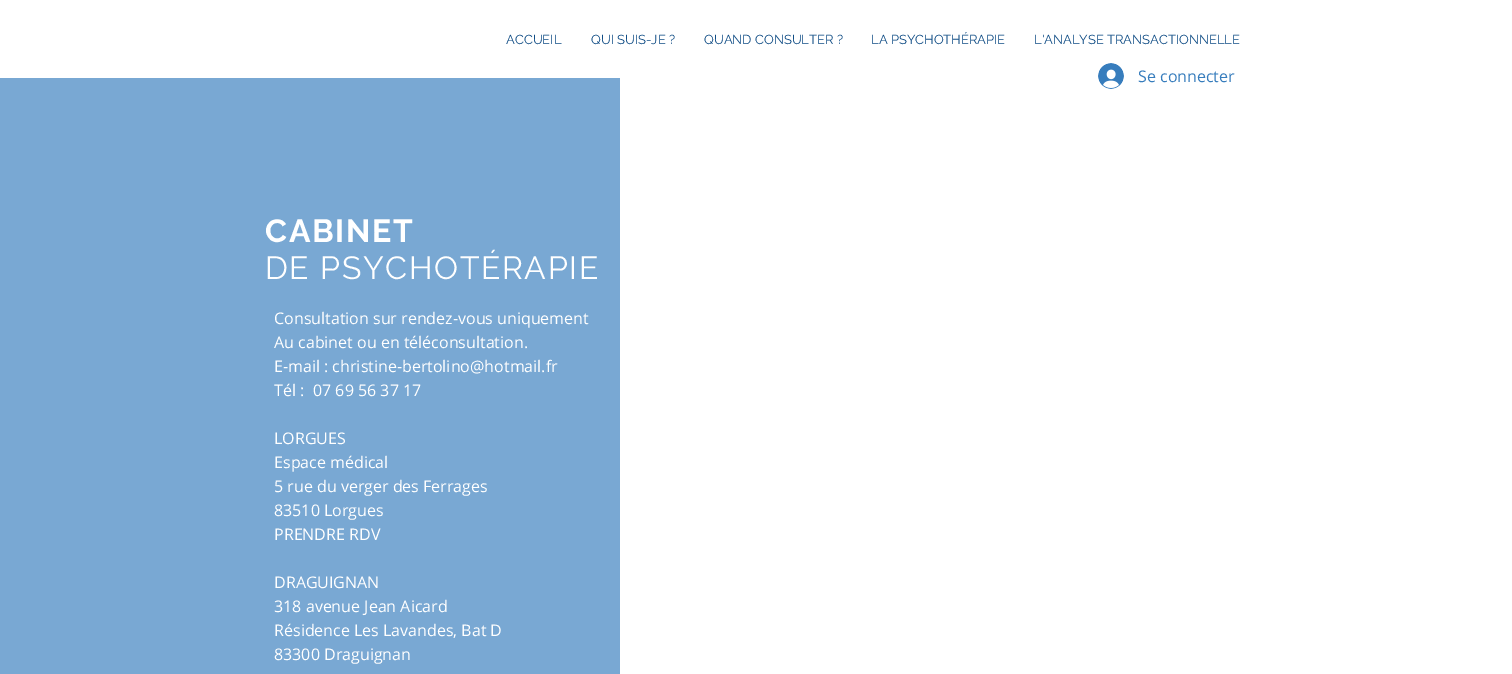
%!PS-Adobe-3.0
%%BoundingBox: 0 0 1512 674
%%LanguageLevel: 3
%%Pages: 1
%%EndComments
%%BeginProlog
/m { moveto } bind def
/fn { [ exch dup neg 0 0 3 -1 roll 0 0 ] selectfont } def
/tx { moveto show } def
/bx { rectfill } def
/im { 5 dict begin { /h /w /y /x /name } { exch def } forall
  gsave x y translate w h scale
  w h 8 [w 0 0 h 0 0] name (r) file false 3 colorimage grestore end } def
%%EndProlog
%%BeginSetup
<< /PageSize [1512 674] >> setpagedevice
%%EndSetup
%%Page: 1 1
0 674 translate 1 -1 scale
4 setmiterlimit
1 setgray
0 0 1512 674 bx
/Raleway-Regular 13 fn
0.059 0.298 0.522 setrgbcolor
(ACCUEIL) 506 44 tx
(QUI SUIS-JE ?) 591 44 tx
(QUAND CONSULTER ?) 704 44 tx
(LA PSYCHOTHÉRAPIE) 871 44 tx
(L'ANALYSE TRANSACTIONNELLE) 1034 44 tx
(image0.raw) 1098 63 26 26 im
/OpenSans-Regular 16 fn
0.216 0.49 0.741 setrgbcolor
(Se connecter) 1138 82 tx
0.475 0.659 0.827 setrgbcolor
0 78 620 596 bx
/Raleway-Bold 32 fn
1 setgray
265 242 m 1.6 0 (CABINET) ashow
/Raleway-Regular 32 fn
265 279 m 1.6 0 (DE PSYCHOTÉRAPIE) ashow
/OpenSans-Regular 16 fn
(Consultation sur rendez-vous uniquement) 274 324 tx
(Au cabinet ou en téléconsultation.) 274 348 tx
(E-mail : christine-bertolino@hotmail.fr) 274 372 tx
(Tél :) 274 396 tx
(07 69 56 37 17) 313 396 tx
(LORGUES) 274 444 tx
(Espace médical) 274 468 tx
(5 rue du verger des Ferrages) 274 492 tx
(83510 Lorgues) 274 516 tx
(PRENDRE RDV) 274 540 tx
(DRAGUIGNAN) 274 588 tx
(318 avenue Jean Aicard) 274 612 tx
(Résidence Les Lavandes, Bat D) 274 636 tx
(83300 Draguignan) 274 660 tx
showpage
%%EOF
